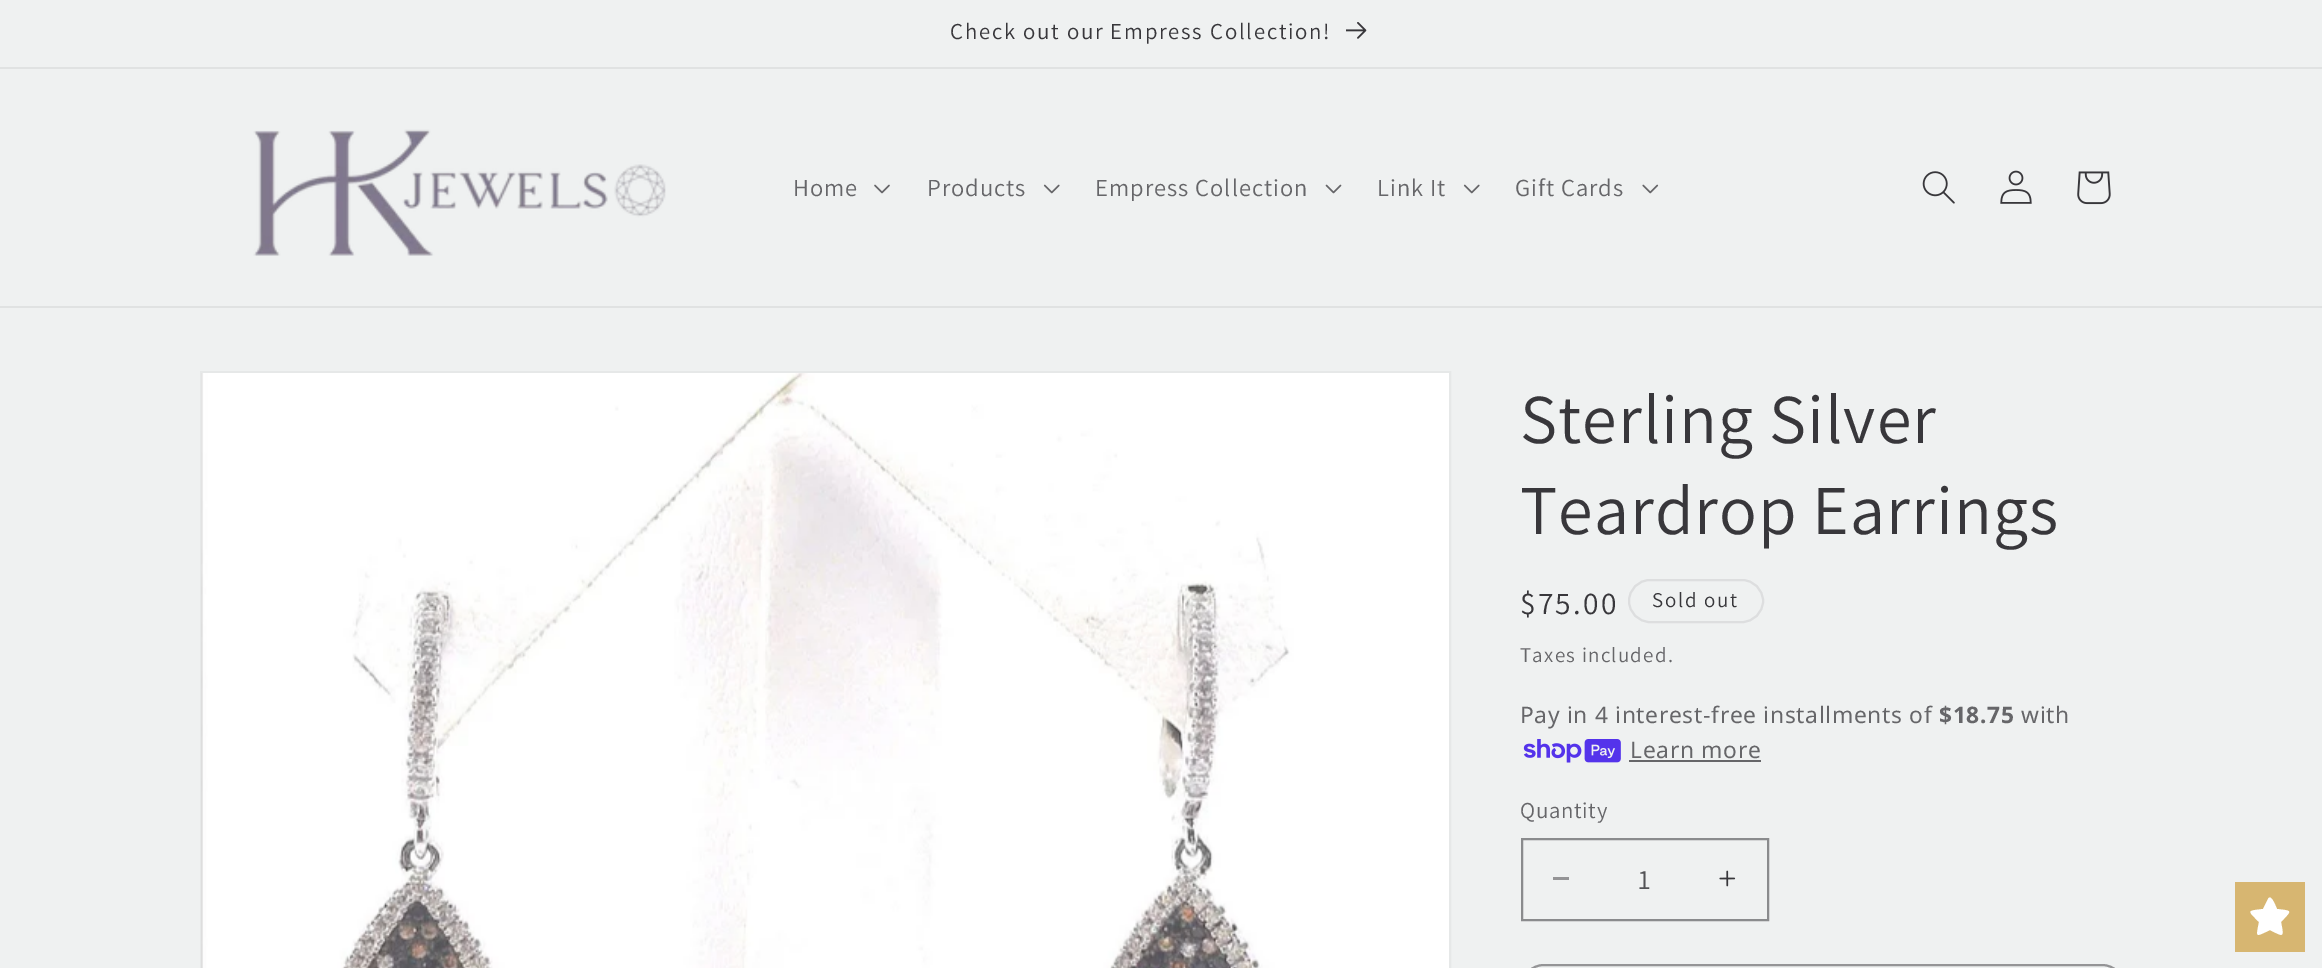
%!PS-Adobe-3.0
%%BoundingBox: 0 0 2322 968
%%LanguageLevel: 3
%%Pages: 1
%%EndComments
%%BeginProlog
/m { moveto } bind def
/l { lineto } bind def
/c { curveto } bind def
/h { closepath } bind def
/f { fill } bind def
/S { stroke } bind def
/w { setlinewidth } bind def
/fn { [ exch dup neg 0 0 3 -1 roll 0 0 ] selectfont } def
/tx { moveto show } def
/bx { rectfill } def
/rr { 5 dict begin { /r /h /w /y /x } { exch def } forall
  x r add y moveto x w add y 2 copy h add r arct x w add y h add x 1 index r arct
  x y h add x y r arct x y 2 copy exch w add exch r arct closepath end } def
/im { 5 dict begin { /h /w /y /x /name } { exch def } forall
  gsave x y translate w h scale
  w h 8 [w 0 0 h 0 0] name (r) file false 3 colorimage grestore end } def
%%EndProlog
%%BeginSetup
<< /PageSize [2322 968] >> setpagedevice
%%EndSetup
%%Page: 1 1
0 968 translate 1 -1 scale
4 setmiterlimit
0.937 0.945 0.945 setrgbcolor
0 0 2322 968 bx
0.878 0.886 0.886 setrgbcolor
0 67 2322 2 bx
/Assistant-Regular 22.75 fn
0.22 0.216 0.231 setrgbcolor
950 39 m 1.75 0 (Check out our Empress Collection!) ashow
(image0.raw) 1346 22 21 17 im
0.878 0.886 0.886 setrgbcolor
0 306 2322 2 bx
(image1.raw) 253 129 413 127 im
/Assistant-Regular 24.5 fn
0.4 0.4 0.412 setrgbcolor
793 196 m 1 0 (Home) ashow
(image2.raw) 874 184 16 10 im
927 196 m 1 0 (Products) ashow
(image3.raw) 1043 184 17 10 im
1095 196 m 1 0 (Empress Collection) ashow
(image4.raw) 1325 184 17 10 im
1377 196 m 1 0 (Link It) ashow
(image3.raw) 1463 184 17 10 im
1515 196 m 1 0 (Gift Cards) ashow
(image5.raw) 1642 184 17 10 im
(image6.raw) 1922 171 33 33 im
(image7.raw) 2000 170 32 34 im
(image8.raw) 2077 171 34 34 im
0.902 0.91 0.91 setrgbcolor
2 w
201 372 1249 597 rectstroke
(image9.raw) 201 373 1248 595 im
/Assistant-Regular 70 fn
0.22 0.216 0.231 setrgbcolor
1520 443 m 1 0 (Sterling Silver) ashow
1520 534 m 1 0 (Teardrop Earrings) ashow
/Assistant-Regular 31.5 fn
1520 614 m 2.25 0 ($75.00) ashow
0.867 0.871 0.875 setrgbcolor
1629 580 134 42 21 rr S
/Assistant-Regular 21 fn
0.22 0.216 0.231 setrgbcolor
1652 607 m 1.75 0 (Sold out) ashow
0.4 0.4 0.412 setrgbcolor
1520 662 m 1.25 0 (Taxes included.) ashow
/NotoSans-Regular 22.75 fn
1520 723 m 0.7 0 (Pay in 4 interest-free installments of) ashow
/NotoSans-Bold 22.75 fn
1939 723 m 0.7 0 ($18.75) ashow
/NotoSans-Regular 22.75 fn
2021 723 m 0.7 0 (with) ashow
(image10.raw) 1523 739 98 24 im
1630 758 m 0.7 0 (Learn more) ashow
1629 760 132 2 bx
/Assistant-Regular 22.75 fn
1520 818 m 0.7 0 (Quantity) ashow
0.58 0.58 0.588 setrgbcolor
1553 877 16 3 bx
(image11.raw) 1719 870 17 17 im
0.541 0.545 0.553 setrgbcolor
1522 839 246 81 rectstroke
/Assistant-Regular 28 fn
0.325 0.325 0.337 setrgbcolor
(1) 1638 889 tx
0.58 0.58 0.588 setrgbcolor
1522 965 602 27 22 rr S
0.843 0.714 0.443 setrgbcolor
2235 882 70 70 bx
1 setgray
2268 899 m 2263 909 l 2247 911 2247 910 2259 922 c 2256 938 2255 937 2270 930 c 2284 937 2284 938 2281 922 c 2292 910 2293 911 2277 909 c 2276 907 2271 893 2268 899 c h f
showpage
%%EOF
